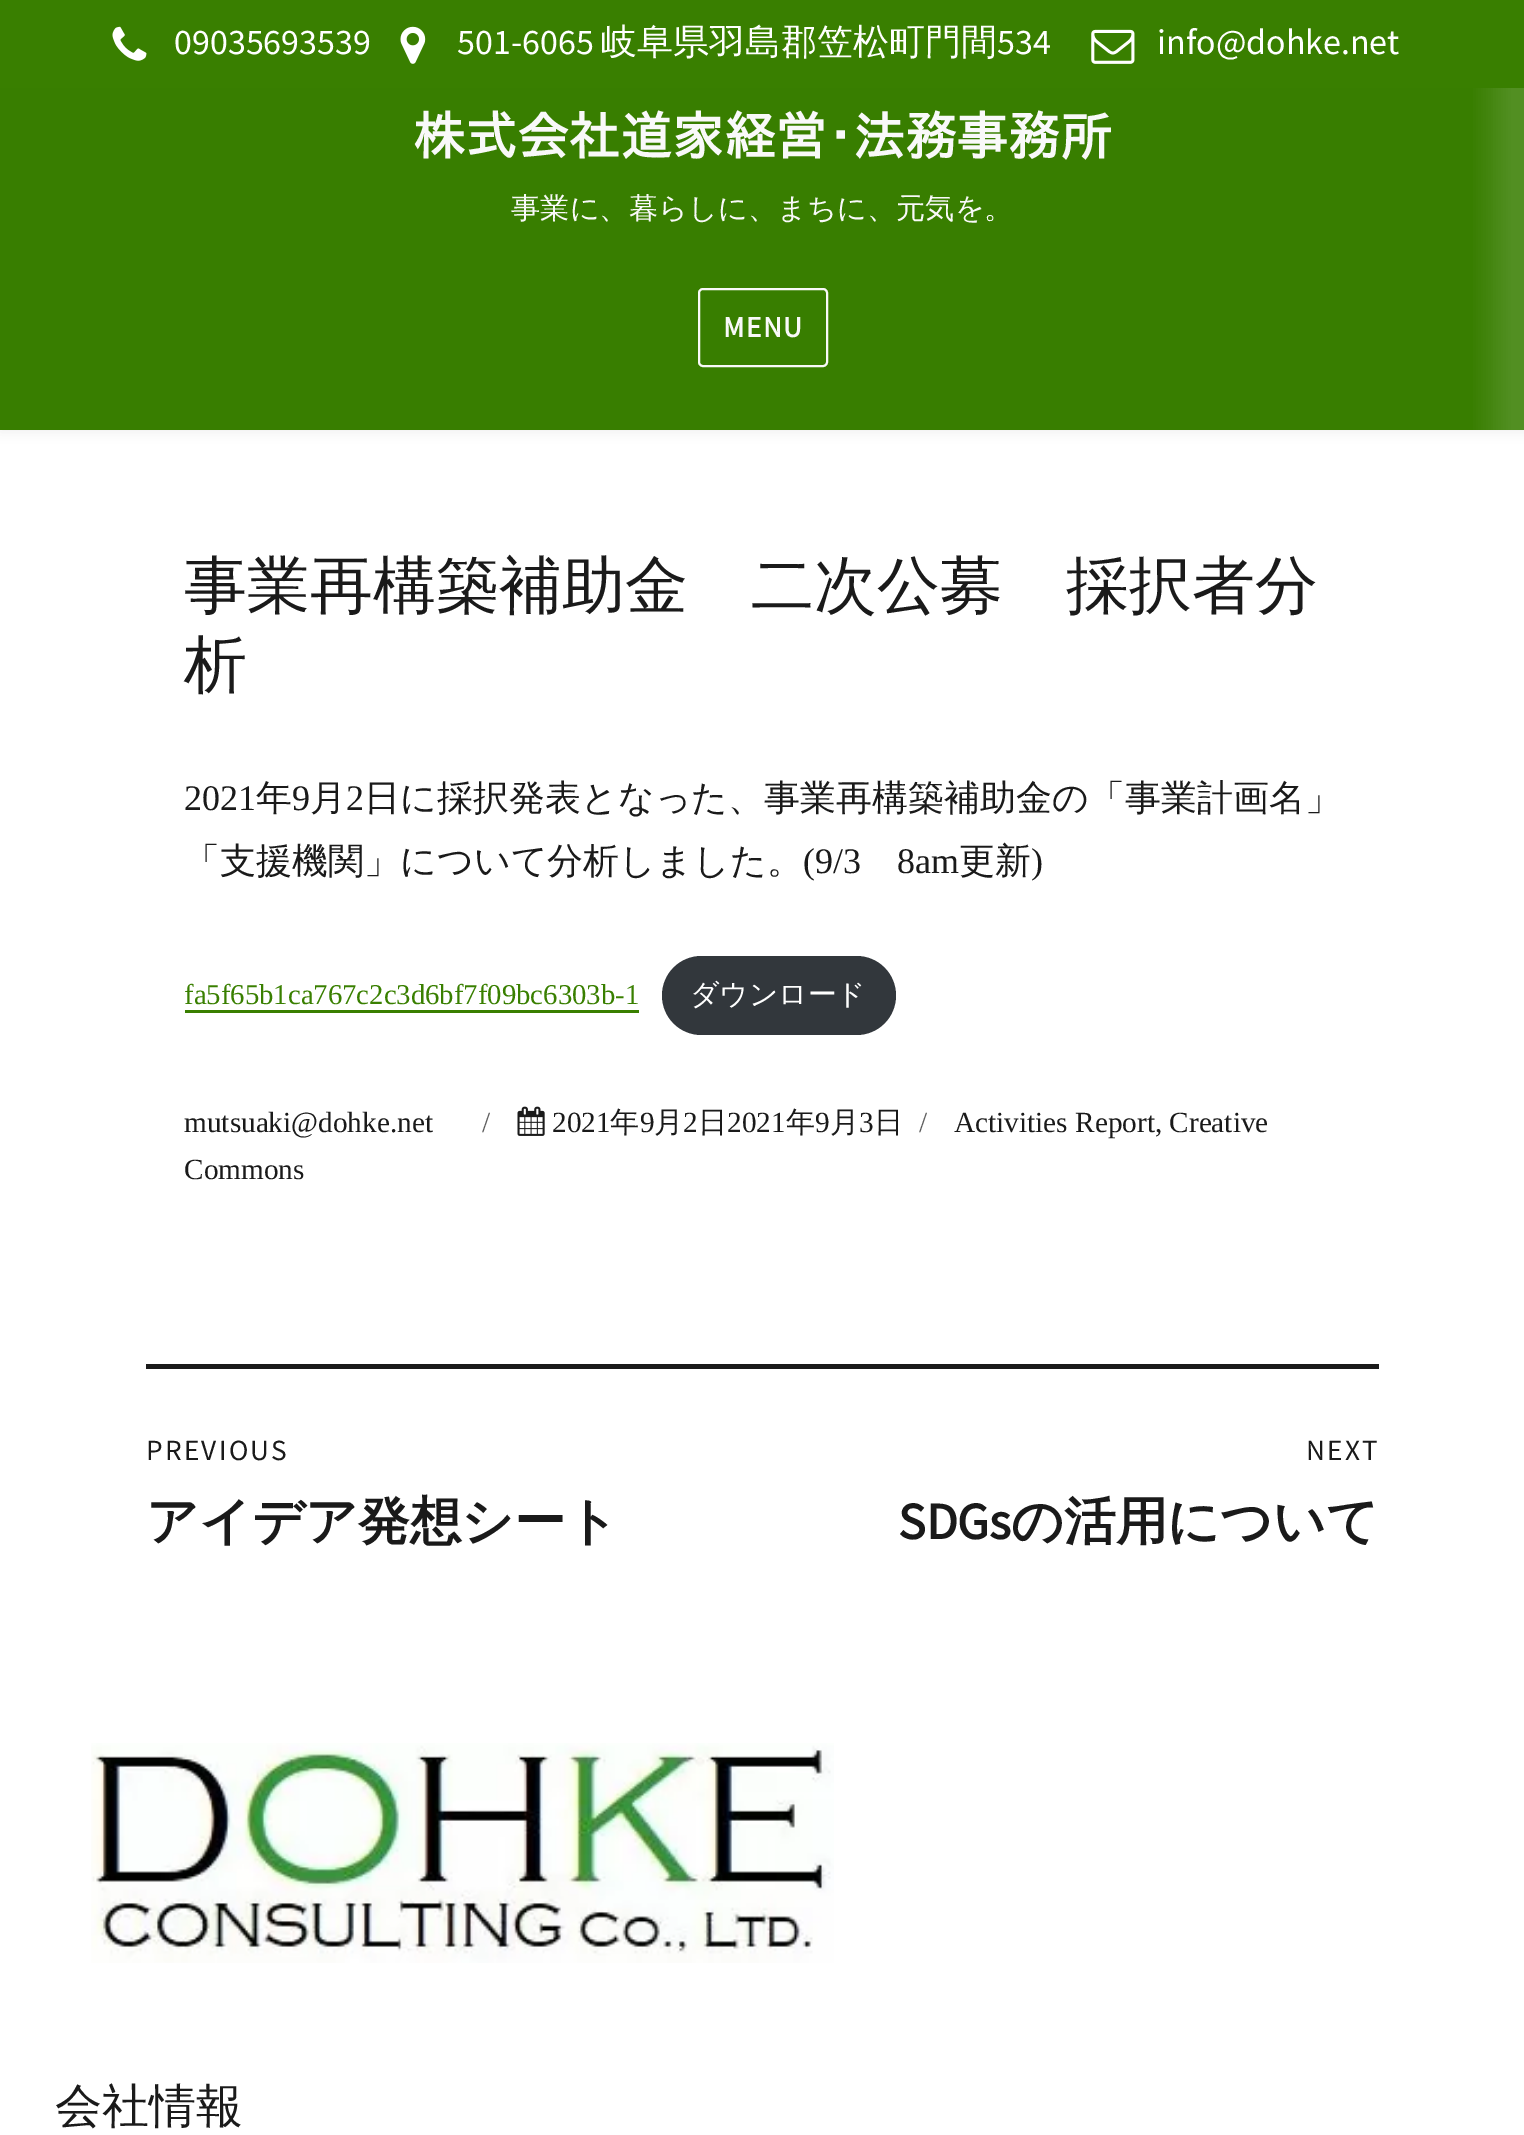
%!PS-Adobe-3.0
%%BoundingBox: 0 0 1524 2135
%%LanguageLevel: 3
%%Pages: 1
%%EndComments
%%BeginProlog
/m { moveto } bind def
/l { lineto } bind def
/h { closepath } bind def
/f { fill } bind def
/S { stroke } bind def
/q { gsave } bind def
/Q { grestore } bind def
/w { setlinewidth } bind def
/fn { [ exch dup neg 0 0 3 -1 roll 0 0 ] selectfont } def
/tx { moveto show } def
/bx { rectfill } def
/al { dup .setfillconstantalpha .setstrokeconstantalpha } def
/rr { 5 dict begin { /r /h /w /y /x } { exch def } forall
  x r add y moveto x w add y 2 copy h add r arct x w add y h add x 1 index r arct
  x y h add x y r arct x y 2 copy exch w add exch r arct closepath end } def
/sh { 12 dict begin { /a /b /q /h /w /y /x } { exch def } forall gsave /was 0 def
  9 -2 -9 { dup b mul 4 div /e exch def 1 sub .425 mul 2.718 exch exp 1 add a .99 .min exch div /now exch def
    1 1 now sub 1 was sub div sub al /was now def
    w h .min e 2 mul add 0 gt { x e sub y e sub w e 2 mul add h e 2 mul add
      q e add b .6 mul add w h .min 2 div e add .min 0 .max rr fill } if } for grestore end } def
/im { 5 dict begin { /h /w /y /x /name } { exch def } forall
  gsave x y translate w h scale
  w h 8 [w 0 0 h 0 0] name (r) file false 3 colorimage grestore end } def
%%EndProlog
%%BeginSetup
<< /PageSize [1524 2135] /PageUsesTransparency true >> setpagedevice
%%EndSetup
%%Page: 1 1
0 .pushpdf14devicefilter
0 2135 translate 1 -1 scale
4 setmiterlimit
1 setgray
0 0 1524 2135 bx
q
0 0 m 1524 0 l 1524 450 l 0 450 l h 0 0 m 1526 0 l 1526 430 l 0 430 l h eoclip newpath
0.933 setgray
0 2 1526 430 0 5.5 1 sh
Q
(image0.raw) 0 88 1524 342 im
0.224 0.498 0 setrgbcolor
0 0 1524 88 bx
(image1.raw) 112 26 35 35 im
/SourceSansPro-Regular 36 fn
1 setgray
(09035693539) 174 54 tx
(image2.raw) 400 26 26 38 im
(501-6065) 457 54 tx
/WenQuanYiZenHei-Medium 36 fn
(岐阜県羽島郡笠松町門間) 601 54 tx
/SourceSansPro-Regular 36 fn
(534) 997 54 tx
(image3.raw) 1091 29 44 35 im
(info@dohke.net) 1157 54 tx
/IPAPGothic-Bold 51.75 fn
0.976 setgray
(株式会社道家経営･法務事務所) 413 155 tx
/WenQuanYiZenHei-Medium 29.25 fn
(事業に、暮らしに、まちに、元気を。) 511 218 tx
2 w
699 289 128 77 4 rr S
/SourceSansPro-Bold 29.25 fn
723 337 m 1.5 0 (MENU) ashow
/WenQuanYiZenHei-Medium 63 fn
0.102 setgray
(事業再構築補助金　二次公募　採択者分) 184 607 tx
(析) 184 686 tx
/LiberationSerif-Regular 36 fn
(2021) 184 810 tx
/WenQuanYiZenHei-Medium 36 fn
(年) 256 810 tx
/LiberationSerif-Regular 36 fn
(9) 292 810 tx
/WenQuanYiZenHei-Medium 36 fn
(月) 310 810 tx
/LiberationSerif-Regular 36 fn
(2) 346 810 tx
/WenQuanYiZenHei-Medium 36 fn
(日に採択発表となった、事業再構築補助金の「事業計画名」) 364 810 tx
(「支援機関」について分析しました。) 184 873 tx
/LiberationSerif-Regular 36 fn
(\(9/3) 803 873 tx
(8am) 897 873 tx
/WenQuanYiZenHei-Medium 36 fn
(更新) 959 873 tx
/LiberationSerif-Regular 36 fn
(\)) 1031 873 tx
/LiberationSerif-Regular 28.75 fn
0.224 0.498 0 setrgbcolor
(fa5f65b1ca767c2c3d6bf7f09bc6303b-1) 184 1004 tx
185 1010 454 3 bx
0.196 0.216 0.235 setrgbcolor
662 956 234 79 39.5 rr f
/WenQuanYiZenHei-Medium 28.75 fn
1 setgray
(ダウンロード) 690 1004 tx
/LiberationSerif-Regular 29.25 fn
0.102 setgray
(mutsuaki@dohke.net) 184 1132 tx
0.373 setgray
(/) 482 1132 tx
(image4.raw) 517 1106 28 30 im
0.102 setgray
(2021) 552 1132 tx
/WenQuanYiZenHei-Medium 29.25 fn
(年) 610 1132 tx
/LiberationSerif-Regular 29.25 fn
(9) 640 1132 tx
/WenQuanYiZenHei-Medium 29.25 fn
(月) 654 1132 tx
/LiberationSerif-Regular 29.25 fn
(2) 683 1132 tx
/WenQuanYiZenHei-Medium 29.25 fn
(日) 698 1132 tx
/LiberationSerif-Regular 29.25 fn
(2021) 727 1132 tx
/WenQuanYiZenHei-Medium 29.25 fn
(年) 786 1132 tx
/LiberationSerif-Regular 29.25 fn
(9) 815 1132 tx
/WenQuanYiZenHei-Medium 29.25 fn
(月) 830 1132 tx
/LiberationSerif-Regular 29.25 fn
(3) 859 1132 tx
/WenQuanYiZenHei-Medium 29.25 fn
(日) 874 1132 tx
/LiberationSerif-Regular 29.25 fn
0.373 setgray
(/) 919 1132 tx
0.102 setgray
(Activities Report, Creative) 954 1132 tx
(Commons) 184 1179 tx
146 1364 1233 5 bx
/SourceSansPro-Regular 29.25 fn
146 1460 m 2.25 0 (PREVIOUS) ashow
/WenQuanYiZenHei-Bold 51.75 fn
(アイデア発想シート) 146 1539 tx
/SourceSansPro-Regular 29.25 fn
1306 1460 m 2.25 0 (NEXT) ashow
/SourceSansPro-Bold 51.75 fn
(SDGs) 898 1539 tx
/WenQuanYiZenHei-Bold 51.75 fn
(の活用について) 1011 1539 tx
(image5.raw) 91 1743 743 220 im
/WenQuanYiZenHei-Medium 47 fn
(会社情報) 55 2122 tx
.poppdf14devicefilter showpage
%%EOF
